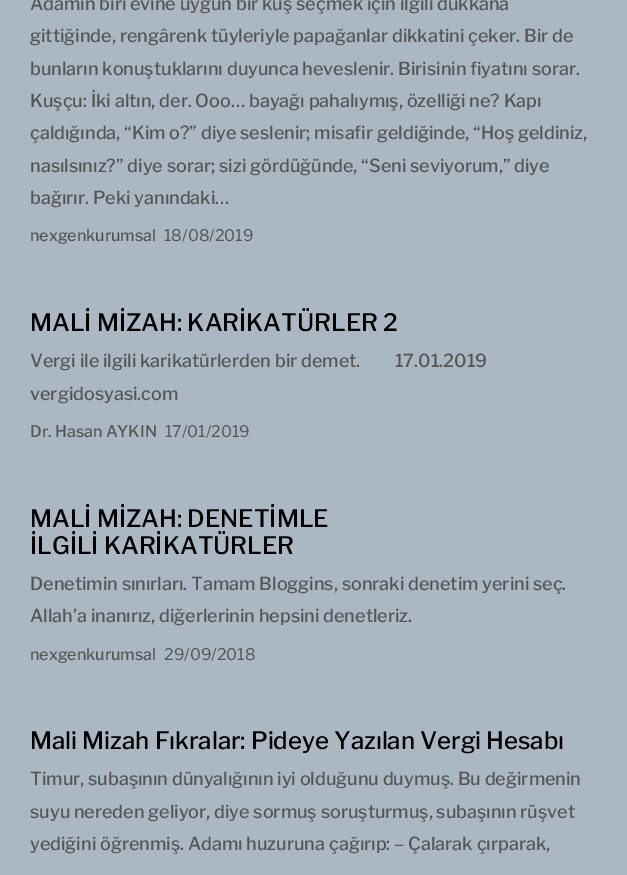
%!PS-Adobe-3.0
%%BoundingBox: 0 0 627 875
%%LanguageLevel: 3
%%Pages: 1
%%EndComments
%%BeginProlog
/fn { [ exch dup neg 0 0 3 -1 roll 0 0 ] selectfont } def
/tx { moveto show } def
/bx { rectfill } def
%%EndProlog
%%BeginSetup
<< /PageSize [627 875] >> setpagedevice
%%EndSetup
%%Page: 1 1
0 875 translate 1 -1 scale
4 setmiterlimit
0.671 0.722 0.765 setrgbcolor
0 0 627 875 bx
/LibreFranklin-Medium 18 fn
0.333 setgray
(Adamın biri evine uygun bir kuş seçmek için ilgili dükkâna) 30 10 tx
(gittiğinde, rengârenk tüyleriyle papağanlar dikkatini çeker. Bir de) 30 42 tx
(bunların konuştuklarını duyunca heveslenir. Birisinin fiyatını sorar.) 30 75 tx
(Kuşçu: İki altın, der. Ooo… bayağı pahalıymış, özelliği ne? Kapı) 30 107 tx
(çaldığında, “Kim o?” diye seslenir; misafir geldiğinde, “Hoş geldiniz,) 30 139 tx
(nasılsınız?” diye sorar; sizi gördüğünde, “Seni seviyorum,” diye) 30 172 tx
(bağırır. Peki yanındaki…) 30 204 tx
/LibreFranklin-Medium 16 fn
(nexgenkurumsal) 30 241 tx
/LibreFranklin-Regular 16 fn
(18/08/2019) 164 241 tx
/LibreFranklin-Medium 24 fn
0 setgray
(MALİ MİZAH: KARİKATÜRLER 2) 30 331 tx
/LibreFranklin-Medium 18 fn
0.333 setgray
(Vergi ile ilgili karikatürlerden bir demet.         17.01.2019) 30 367 tx
(vergidosyasi.com) 30 400 tx
/LibreFranklin-Medium 16 fn
(Dr. Hasan AYKIN) 30 437 tx
/LibreFranklin-Regular 16 fn
(17/01/2019) 165 437 tx
/LibreFranklin-Medium 24 fn
0 setgray
(MALİ MİZAH: DENETİMLE) 30 527 tx
(İLGİLİ KARİKATÜRLER) 30 554 tx
/LibreFranklin-Medium 18 fn
0.333 setgray
(Denetimin sınırları. Tamam Bloggins, sonraki denetim yerini seç.) 30 590 tx
(Allah’a inanırız, diğerlerinin hepsini denetleriz.) 30 622 tx
/LibreFranklin-Medium 16 fn
(nexgenkurumsal) 30 660 tx
/LibreFranklin-Regular 16 fn
(29/09/2018) 164 660 tx
/LibreFranklin-Medium 24 fn
0 setgray
(Mali Mizah Fıkralar: Pideye Yazılan Vergi Hesabı) 30 749 tx
/LibreFranklin-Medium 18 fn
0.333 setgray
(Timur, subaşının dünyalığının iyi olduğunu duymuş. Bu değirmenin) 30 785 tx
(suyu nereden geliyor, diye sormuş soruşturmuş, subaşının rüşvet) 30 818 tx
(yediğini öğrenmiş. Adamı huzuruna çağırıp: – Çalarak çırparak,) 30 850 tx
showpage
%%EOF
